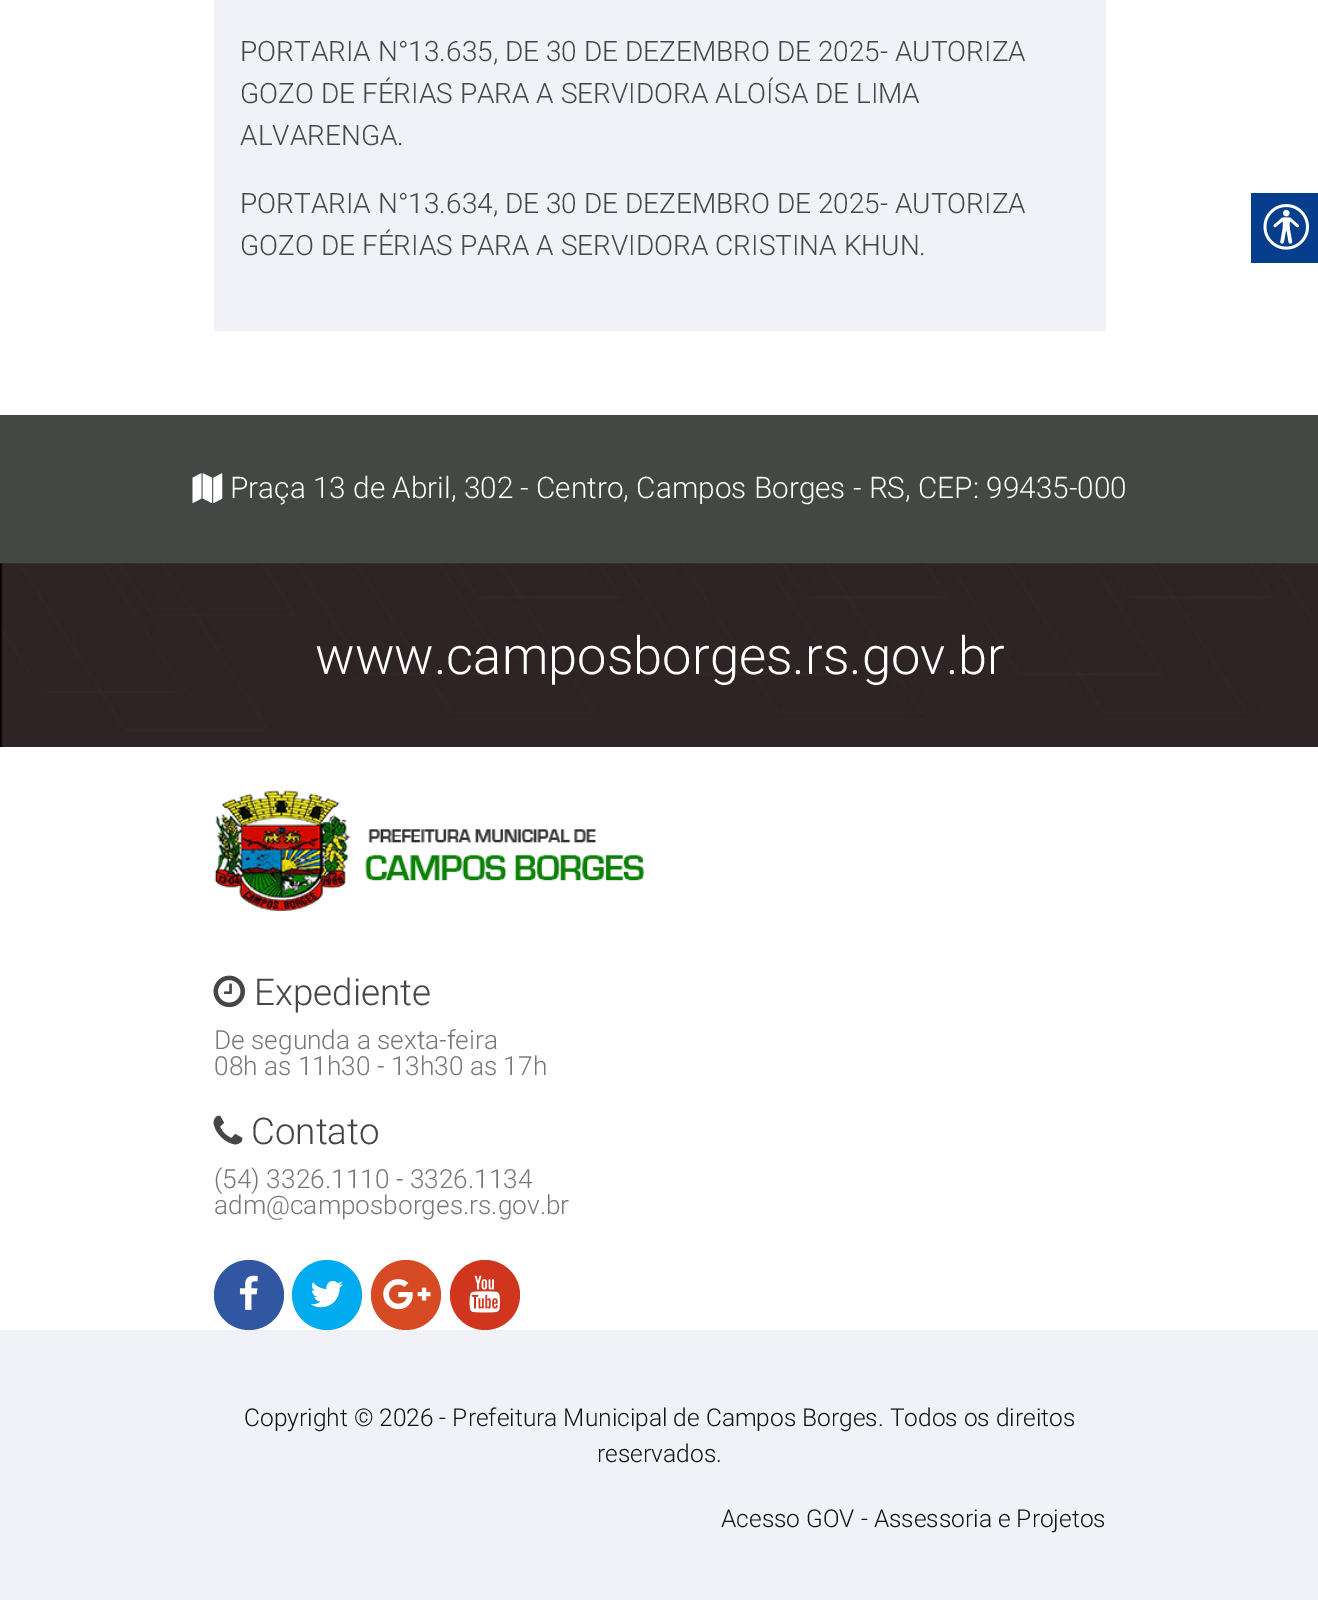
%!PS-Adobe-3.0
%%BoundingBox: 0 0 1318 1600
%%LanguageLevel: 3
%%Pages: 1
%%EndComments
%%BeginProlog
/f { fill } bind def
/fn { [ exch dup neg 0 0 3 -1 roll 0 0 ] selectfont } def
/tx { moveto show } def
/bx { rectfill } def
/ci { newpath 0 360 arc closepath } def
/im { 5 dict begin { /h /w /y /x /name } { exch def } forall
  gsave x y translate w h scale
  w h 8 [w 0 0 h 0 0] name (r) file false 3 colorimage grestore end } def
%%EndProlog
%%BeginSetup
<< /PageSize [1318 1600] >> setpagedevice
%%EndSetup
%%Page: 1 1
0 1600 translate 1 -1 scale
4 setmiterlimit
1 setgray
0 0 1318 1600 bx
0.945 0.949 0.969 setrgbcolor
214 0 892 331 bx
/Roboto-Light 28 fn
0.263 0.282 0.267 setrgbcolor
(PORTARIA N°13.635, DE 30 DE DEZEMBRO DE 2025- AUTORIZA) 240 61 tx
(GOZO DE FÉRIAS PARA A SERVIDORA ALOÍSA DE LIMA) 240 103 tx
(ALVARENGA.) 240 145 tx
(PORTARIA N°13.634, DE 30 DE DEZEMBRO DE 2025- AUTORIZA) 240 213 tx
(GOZO DE FÉRIAS PARA A SERVIDORA CRISTINA KHUN.) 240 255 tx
0.024 0.239 0.553 setrgbcolor
1251 193 67 70 bx
(image0.raw) 1263 204 46 46 im
0.263 0.282 0.267 setrgbcolor
0 415 1318 149 bx
(image1.raw) 192 473 31 30 im
/Roboto-Light 29.75 fn
1 setgray
(Praça 13 de Abril, 302 - Centro, Campos Borges - RS, CEP: 99435-000) 230 498 tx
(image2.raw) 0 563 1318 184 im
/Roboto-Light 52.5 fn
(www.camposborges.rs.gov.br) 315 674 tx
(image3.raw) 214 789 430 123 im
(image4.raw) 213 975 32 33 im
/Roboto-Light 36.75 fn
0.263 0.282 0.267 setrgbcolor
(Expediente) 254 1005 tx
/Roboto-Light 26.25 fn
0.467 setgray
(De segunda a sexta-feira) 214 1049 tx
(08h as 11h30 - 13h30 as 17h) 214 1075 tx
(image5.raw) 213 1115 30 30 im
/Roboto-Light 36.75 fn
0.263 0.282 0.267 setrgbcolor
(Contato) 251 1144 tx
/Roboto-Light 26.25 fn
0.467 setgray
(\(54\) 3326.1110 - 3326.1134) 214 1188 tx
(adm@camposborges.rs.gov.br) 214 1214 tx
0.192 0.341 0.639 setrgbcolor
249 1295 35 ci f
(image6.raw) 239 1275 19 35 im
0 0.671 0.941 setrgbcolor
327 1295 35 ci f
(image7.raw) 310 1281 33 27 im
0.839 0.294 0.141 setrgbcolor
406 1295 35 ci f
(image8.raw) 383 1279 48 31 im
0.812 0.212 0.114 setrgbcolor
485 1295 35 ci f
(image9.raw) 469 1275 31 38 im
0.945 0.949 0.969 setrgbcolor
0 1330 1318 270 bx
/Roboto-Light 24.5 fn
0.071 setgray
(Copyright © 2026 - Prefeitura Municipal de Campos Borges. Todos os direitos) 244 1426 tx
(reservados.) 597 1462 tx
(Acesso GOV - Assessoria e Projetos) 721 1527 tx
showpage
%%EOF
